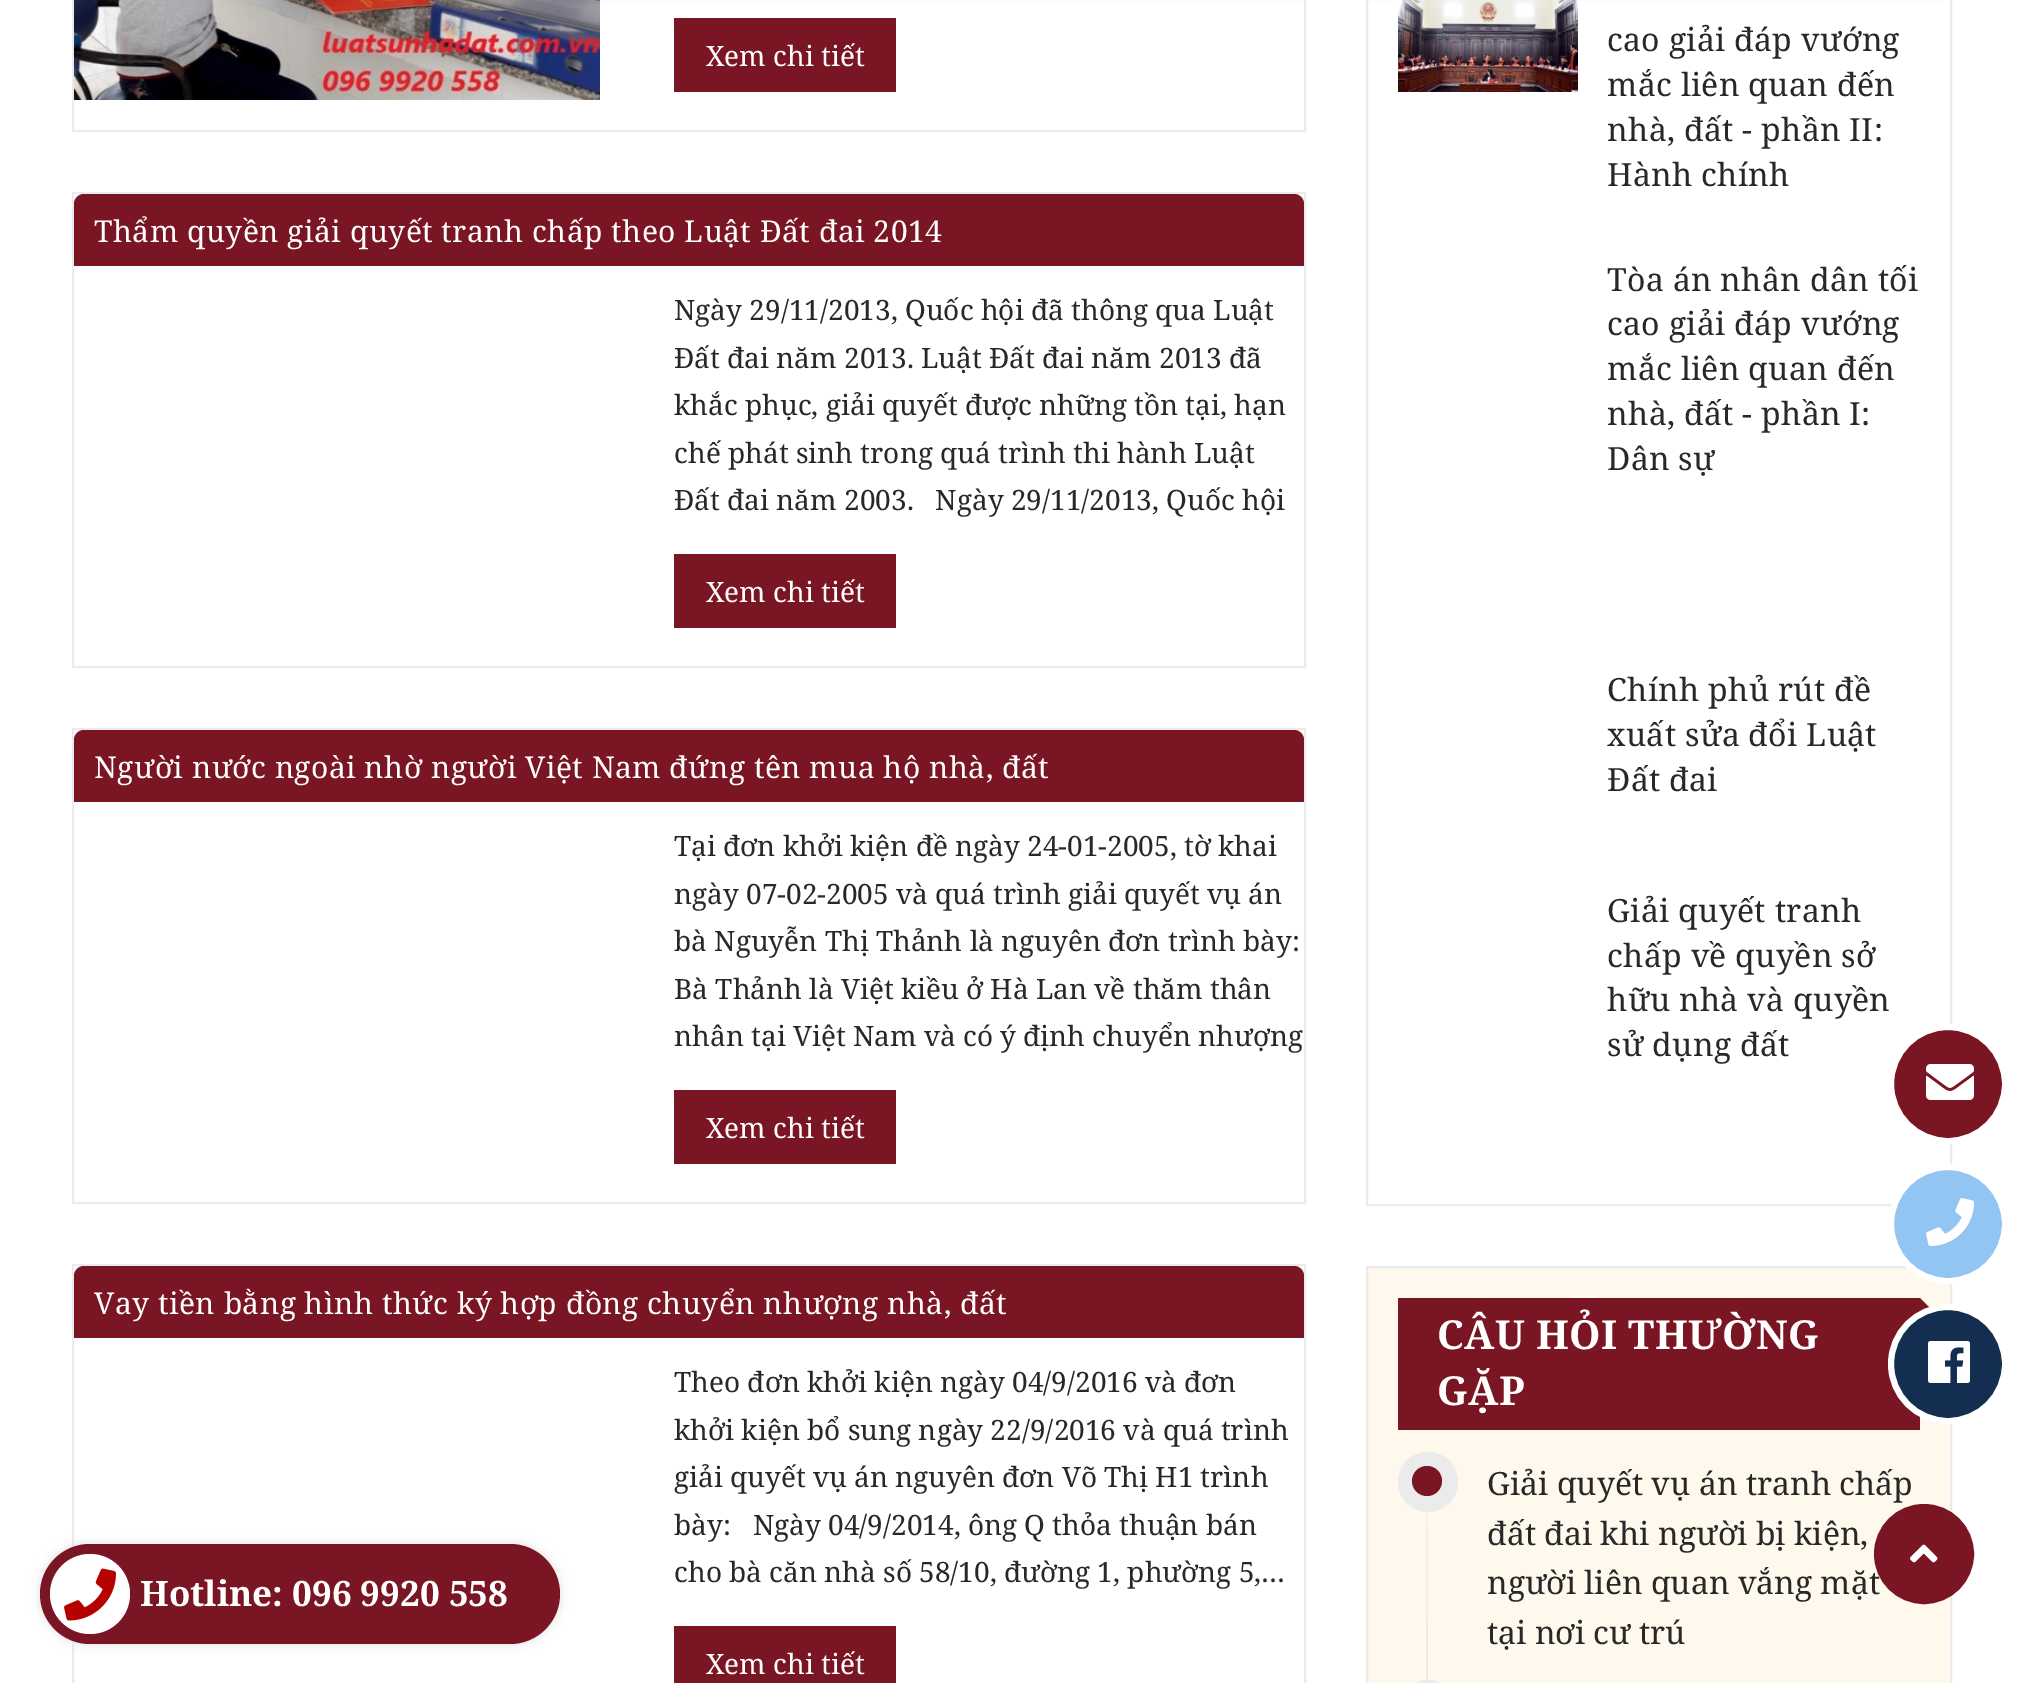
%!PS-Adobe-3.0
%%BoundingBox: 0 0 2023 1683
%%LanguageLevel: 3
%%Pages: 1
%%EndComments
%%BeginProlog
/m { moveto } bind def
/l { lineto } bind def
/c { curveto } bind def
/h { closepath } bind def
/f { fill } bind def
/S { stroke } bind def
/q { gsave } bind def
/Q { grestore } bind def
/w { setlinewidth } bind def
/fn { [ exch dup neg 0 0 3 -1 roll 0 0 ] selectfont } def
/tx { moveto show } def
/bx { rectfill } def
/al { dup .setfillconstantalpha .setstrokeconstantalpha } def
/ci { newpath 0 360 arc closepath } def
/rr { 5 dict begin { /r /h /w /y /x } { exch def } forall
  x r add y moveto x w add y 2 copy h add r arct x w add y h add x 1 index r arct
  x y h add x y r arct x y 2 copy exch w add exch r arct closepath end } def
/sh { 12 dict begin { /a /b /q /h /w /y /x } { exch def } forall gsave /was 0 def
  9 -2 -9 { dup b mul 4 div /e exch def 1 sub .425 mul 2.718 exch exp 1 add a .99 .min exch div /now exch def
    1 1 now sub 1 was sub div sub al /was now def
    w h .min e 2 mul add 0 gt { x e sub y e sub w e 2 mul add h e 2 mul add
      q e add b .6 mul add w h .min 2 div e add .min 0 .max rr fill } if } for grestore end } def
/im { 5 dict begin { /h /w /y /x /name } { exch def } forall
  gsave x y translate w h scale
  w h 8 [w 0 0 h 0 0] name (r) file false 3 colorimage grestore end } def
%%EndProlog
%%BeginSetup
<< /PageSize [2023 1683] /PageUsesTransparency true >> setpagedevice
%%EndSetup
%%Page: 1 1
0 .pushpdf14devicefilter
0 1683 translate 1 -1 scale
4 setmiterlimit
1 setgray
0 0 2023 1683 bx
0.922 setgray
2 w
73 -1 1232 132 rectstroke
(image0.raw) 74 0 526 100 im
0.478 0.082 0.137 setrgbcolor
674 18 222 74 bx
/NotoSerif-Regular 28 fn
1 setgray
(Xem chi tiết) 706 66 tx
0.922 setgray
73 193 1232 474 rectstroke
0.478 0.082 0.137 setrgbcolor
84 194 m 1294 194 l 1299.5 194 1304 198.5 1304 204 c 1304 266 l 74 266 l 74 204 l 74 198.5 78.5 194 84 194 c h f
/NotoSerif-Regular 30 fn
1 setgray
94 242 m 0.48 0 (Thẩm quyền giải quyết tranh chấp theo Luật Đất đai 2014) ashow
/NotoSerif-Regular 28 fn
0.157 setgray
(Ngày 29/11/2013, Quốc hội đã thông qua Luật) 674 320 tx
(Đất đai năm 2013. Luật Đất đai năm 2013 đã) 674 368 tx
(khắc phục, giải quyết được những tồn tại, hạn) 674 415 tx
(chế phát sinh trong quá trình thi hành Luật) 674 463 tx
(Đất đai năm 2003.   Ngày 29/11/2013, Quốc hội) 674 510 tx
0.478 0.082 0.137 setrgbcolor
674 554 222 74 bx
1 setgray
(Xem chi tiết) 706 602 tx
0.922 setgray
73 729 1232 474 rectstroke
0.478 0.082 0.137 setrgbcolor
84 730 m 1294 730 l 1299.5 730 1304 734.5 1304 740 c 1304 802 l 74 802 l 74 740 l 74 734.5 78.5 730 84 730 c h f
/NotoSerif-Regular 30 fn
1 setgray
94 778 m 0.48 0 (Người nước ngoài nhờ người Việt Nam đứng tên mua hộ nhà, đất) ashow
/NotoSerif-Regular 28 fn
0.157 setgray
(Tại đơn khởi kiện đề ngày 24-01-2005, tờ khai) 674 856 tx
(ngày 07-02-2005 và quá trình giải quyết vụ án) 674 904 tx
(bà Nguyễn Thị Thảnh là nguyên đơn trình bày:) 674 951 tx
(Bà Thảnh là Việt kiều ở Hà Lan về thăm thân) 674 999 tx
(nhân tại Việt Nam và có ý định chuyển nhượng) 674 1046 tx
0.478 0.082 0.137 setrgbcolor
674 1090 222 74 bx
1 setgray
(Xem chi tiết) 706 1138 tx
0.922 setgray
73 1265 1232 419 rectstroke
0.478 0.082 0.137 setrgbcolor
84 1266 m 1294 1266 l 1299.5 1266 1304 1270.5 1304 1276 c 1304 1338 l 74 1338 l 74 1276 l 74 1270.5 78.5 1266 84 1266 c h f
/NotoSerif-Regular 30 fn
1 setgray
94 1314 m 0.48 0 (Vay tiền bằng hình thức ký hợp đồng chuyển nhượng nhà, đất) ashow
/NotoSerif-Regular 28 fn
0.157 setgray
(Theo đơn khởi kiện ngày 04/9/2016 và đơn) 674 1392 tx
(khởi kiện bổ sung ngày 22/9/2016 và quá trình) 674 1440 tx
(giải quyết vụ án nguyên đơn Võ Thị H1 trình) 674 1487 tx
(bày:   Ngày 04/9/2014, ông Q thỏa thuận bán) 674 1535 tx
(cho bà căn nhà số 58/10, đường 1, phường 5,…) 674 1582 tx
0.478 0.082 0.137 setrgbcolor
674 1626 222 57 bx
1 setgray
(Xem chi tiết) 706 1674 tx
0.922 setgray
1367 -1 584 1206 rectstroke
(image1.raw) 1398 0 180 92 im
/NotoSerif-Regular 32 fn
0.157 setgray
1607 51 m 0.3 0 (cao giải đáp vướng) ashow
1607 96 m 0.3 0 (mắc liên quan đến) ashow
1607 141 m 0.3 0 (nhà, đất - phần II:) ashow
1607 186 m 0.3 0 (Hành chính) ashow
1607 291 m 0.3 0 (Tòa án nhân dân tối) ashow
1607 335 m 0.3 0 (cao giải đáp vướng) ashow
1607 380 m 0.3 0 (mắc liên quan đến) ashow
1607 425 m 0.3 0 (nhà, đất - phần I:) ashow
1607 470 m 0.3 0 (Dân sự) ashow
1607 701 m 0.3 0 (Chính phủ rút đề) ashow
1607 746 m 0.3 0 (xuất sửa đổi Luật) ashow
1607 791 m 0.3 0 (Đất đai) ashow
1607 922 m 0.3 0 (Giải quyết tranh) ashow
1607 967 m 0.3 0 (chấp về quyền sở) ashow
1607 1011 m 0.3 0 (hữu nhà và quyền) ashow
1607 1056 m 0.3 0 (sử dụng đất) ashow
1 0.976 0.929 setrgbcolor
1367 1267 m 1951 1267 l 1951 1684 l 1367 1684 l h q f Q
0.922 setgray
S
0.478 0.082 0.137 setrgbcolor
1398 1298 522 132 bx
/NotoSerif-Bold 40 fn
1 setgray
1437 1349 m 0.4 0 (CÂU HỎI THƯỜNG) ashow
0.478 0.082 0.137 setrgbcolor
1920 1370 m 1920 1298 l 1992 1370 l h f
1 setgray
1437 1405 m 0.4 0 (GẶP) ashow
0.922 setgray
1427 1460 m 1427.5 1460 1428 1660 1428 1907 c 1428 2154 1427.5 2354 1427 2354 c 1426.5 2354 1426 2154 1426 1907 c 1426 1660 1426.5 1460 1427 1460 c h f
1428 1482 30 ci f
0.478 0.082 0.137 setrgbcolor
1427 1481 15 ci f
/NotoSerif-Regular 32 fn
0.157 setgray
(Giải quyết vụ án tranh chấp) 1487 1495 tx
(đất đai khi người bị kiện,) 1487 1545 tx
(người liên quan vắng mặt) 1487 1594 tx
(tại nơi cư trú) 1487 1644 tx
0.922 setgray
1398 1680 60 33 30 rr f
0.478 0.082 0.137 setrgbcolor
1948 1084 57 ci q f Q
1 setgray
6 w
S
(image2.raw) 1926 1064 48 36 im
0.573 0.773 0.945 setrgbcolor
1948 1224 57 ci q f Q
1 setgray
S
(image3.raw) 1926 1198 48 48 im
0.078 0.18 0.318 setrgbcolor
1948 1364 57 ci q f Q
1 setgray
S
(image4.raw) 1928 1341 42 42 im
0.867 setgray
40 1544 520 100 50 5 1 sh
0.478 0.082 0.137 setrgbcolor
40 1544 520 100 50 rr f
1 setgray
90 1594 40 ci f
(image5.raw) 64 1568 52 53 im
/NotoSerif-Bold 35 fn
(Hotline: 096 9920 558) 140 1606 tx
0.478 0.082 0.137 setrgbcolor
1924 1554 49 ci q f Q
2 w
S
(image6.raw) 1910 1544 28 19 im
.poppdf14devicefilter showpage
%%EOF
